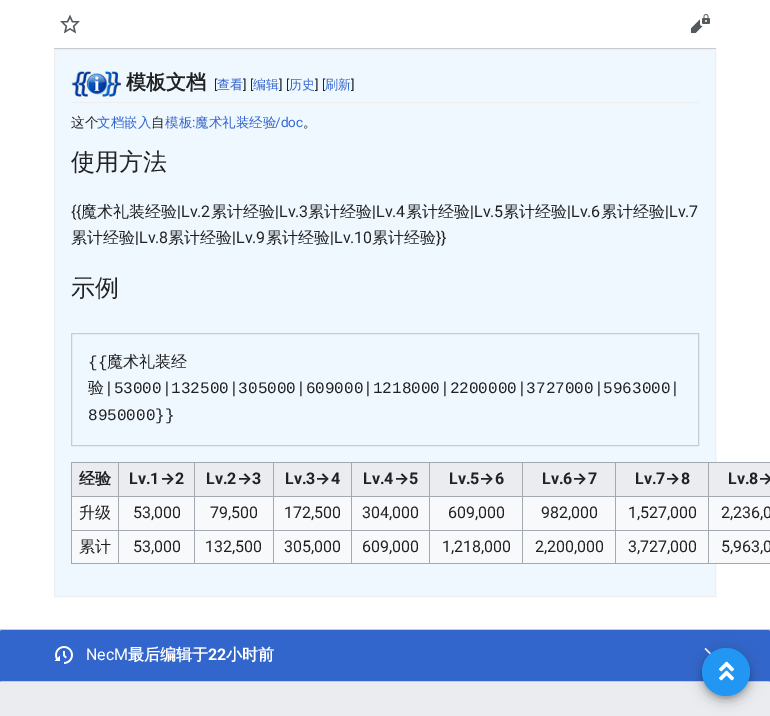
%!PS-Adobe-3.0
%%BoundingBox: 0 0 770 716
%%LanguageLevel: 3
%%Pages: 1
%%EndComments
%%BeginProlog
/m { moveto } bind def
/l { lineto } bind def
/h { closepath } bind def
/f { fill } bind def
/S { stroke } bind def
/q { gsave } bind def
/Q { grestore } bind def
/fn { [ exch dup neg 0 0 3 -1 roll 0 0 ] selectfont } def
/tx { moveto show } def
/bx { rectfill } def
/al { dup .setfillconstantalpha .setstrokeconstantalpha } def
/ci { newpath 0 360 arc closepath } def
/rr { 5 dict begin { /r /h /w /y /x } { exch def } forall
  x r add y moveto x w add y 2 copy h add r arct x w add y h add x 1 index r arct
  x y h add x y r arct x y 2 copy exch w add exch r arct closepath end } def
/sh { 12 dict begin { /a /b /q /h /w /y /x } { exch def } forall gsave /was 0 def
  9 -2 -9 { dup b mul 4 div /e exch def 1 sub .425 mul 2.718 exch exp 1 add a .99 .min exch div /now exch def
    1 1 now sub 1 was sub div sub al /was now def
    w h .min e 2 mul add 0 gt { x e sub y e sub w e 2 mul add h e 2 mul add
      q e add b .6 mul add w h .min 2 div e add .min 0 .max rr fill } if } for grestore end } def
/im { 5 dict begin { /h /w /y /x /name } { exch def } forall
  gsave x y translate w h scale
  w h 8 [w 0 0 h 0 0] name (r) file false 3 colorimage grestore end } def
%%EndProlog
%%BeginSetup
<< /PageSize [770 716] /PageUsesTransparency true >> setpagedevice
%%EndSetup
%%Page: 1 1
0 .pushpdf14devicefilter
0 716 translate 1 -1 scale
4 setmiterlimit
0.918 0.925 0.941 setrgbcolor
0 0 770 716 bx
1 setgray
0 0 770 629 bx
0.784 0.8 0.82 setrgbcolor
54 48 662 1 bx
(image0.raw) 60 14 20 20 im
(image1.raw) 691 14 19 19 im
0.941 0.973 1 setrgbcolor
54.5 49.5 m 715.5 49.5 l 715.5 596.5 l 54.5 596.5 l h q f Q
0.933 setgray
S
71 102 628 1 bx
(image2.raw) 71 71 50 26 im
/WenQuanYiZenHei-Bold 20 fn
0.125 0.129 0.133 setrgbcolor
(模板文档) 126 89 tx
/Roboto-Regular 13 fn
([) 214 89 tx
/WenQuanYiZenHei-Medium 13 fn
0.2 0.4 0.8 setrgbcolor
(查看) 217 89 tx
/Roboto-Regular 13 fn
0.125 0.129 0.133 setrgbcolor
(] [) 243 89 tx
/WenQuanYiZenHei-Medium 13 fn
0.2 0.4 0.8 setrgbcolor
(编辑) 253 89 tx
/Roboto-Regular 13 fn
0.125 0.129 0.133 setrgbcolor
(] [) 279 89 tx
/WenQuanYiZenHei-Medium 13 fn
0.2 0.4 0.8 setrgbcolor
(历史) 289 89 tx
/Roboto-Regular 13 fn
0.125 0.129 0.133 setrgbcolor
(] [) 315 89 tx
/WenQuanYiZenHei-Medium 13 fn
0.2 0.4 0.8 setrgbcolor
(刷新) 325 89 tx
/Roboto-Regular 13 fn
0.125 0.129 0.133 setrgbcolor
(]) 351 89 tx
/WenQuanYiZenHei-Medium 13.5 fn
(这个) 71 127 tx
0.2 0.4 0.8 setrgbcolor
(文档嵌入) 97 127 tx
0.125 0.129 0.133 setrgbcolor
(自) 151 127 tx
0.2 0.4 0.8 setrgbcolor
(模板) 165 127 tx
/Roboto-Regular 13.5 fn
(:) 192 127 tx
/WenQuanYiZenHei-Medium 13.5 fn
(魔术礼装经验) 195 127 tx
/Roboto-Regular 13.5 fn
(/doc) 275 127 tx
/WenQuanYiZenHei-Medium 13.5 fn
0.125 0.129 0.133 setrgbcolor
(。) 303 127 tx
/WenQuanYiZenHei-Medium 24 fn
(使用方法) 71 170 tx
/Roboto-Regular 16 fn
({{) 71 217 tx
/WenQuanYiZenHei-Medium 16 fn
(魔术礼装经验) 81 217 tx
/Roboto-Regular 16 fn
(|Lv.2) 177 217 tx
/WenQuanYiZenHei-Medium 16 fn
(累计经验) 211 217 tx
/Roboto-Regular 16 fn
(|Lv.3) 275 217 tx
/WenQuanYiZenHei-Medium 16 fn
(累计经验) 308 217 tx
/Roboto-Regular 16 fn
(|Lv.4) 372 217 tx
/WenQuanYiZenHei-Medium 16 fn
(累计经验) 406 217 tx
/Roboto-Regular 16 fn
(|Lv.5) 470 217 tx
/WenQuanYiZenHei-Medium 16 fn
(累计经验) 503 217 tx
/Roboto-Regular 16 fn
(|Lv.6) 567 217 tx
/WenQuanYiZenHei-Medium 16 fn
(累计经验) 601 217 tx
/Roboto-Regular 16 fn
(|Lv.7) 665 217 tx
/WenQuanYiZenHei-Medium 16 fn
(累计经验) 71 243 tx
/Roboto-Regular 16 fn
(|Lv.8) 135 243 tx
/WenQuanYiZenHei-Medium 16 fn
(累计经验) 168 243 tx
/Roboto-Regular 16 fn
(|Lv.9) 232 243 tx
/WenQuanYiZenHei-Medium 16 fn
(累计经验) 266 243 tx
/Roboto-Regular 16 fn
(|Lv.10) 330 243 tx
/WenQuanYiZenHei-Medium 16 fn
(累计经验) 372 243 tx
/Roboto-Regular 16 fn
(}}) 436 243 tx
/WenQuanYiZenHei-Medium 24 fn
(示例) 71 296 tx
0.784 0.8 0.82 setrgbcolor
71.5 333.5 627 112 rectstroke
/LiberationMono-Regular 16 fn
0.125 0.129 0.133 setrgbcolor
({{) 88 367 tx
/WenQuanYiZenHei-Medium 16 fn
(魔术礼装经) 107 367 tx
(验) 88 393 tx
/LiberationMono-Regular 16 fn
(|53000|132500|305000|609000|1218000|2200000|3727000|5963000|) 104 393 tx
(8950000}}) 88 420 tx
0.973 0.976 0.98 setrgbcolor
72 497 698 66 bx
0.635 0.663 0.694 setrgbcolor
71 462 699 1 bx
71 563 699 1 bx
71 462 1 102 bx
0.918 0.925 0.941 setrgbcolor
72 463 46 33 bx
/WenQuanYiZenHei-Bold 16 fn
0.125 0.129 0.133 setrgbcolor
(经验) 79 484 tx
0.918 0.925 0.941 setrgbcolor
119 463 75 33 bx
0.635 0.663 0.694 setrgbcolor
708 496 62 1 bx
708 530 62 1 bx
708 530 1 34 bx
615 530 94 1 bx
708 496 1 35 bx
615 496 94 1 bx
615 530 1 34 bx
522 530 94 1 bx
615 496 1 35 bx
522 496 94 1 bx
522 530 1 34 bx
429 530 94 1 bx
522 496 1 35 bx
429 496 94 1 bx
429 530 1 34 bx
351 530 79 1 bx
429 496 1 35 bx
351 496 79 1 bx
351 530 1 34 bx
273 530 79 1 bx
351 496 1 35 bx
273 496 79 1 bx
273 530 1 34 bx
194 530 80 1 bx
273 496 1 35 bx
194 496 80 1 bx
194 530 1 34 bx
118 530 77 1 bx
194 496 1 35 bx
118 496 77 1 bx
118 530 1 34 bx
71 530 48 1 bx
118 496 1 35 bx
71 496 48 1 bx
118 462 1 35 bx
/Roboto-Bold 16 fn
0.125 0.129 0.133 setrgbcolor
(Lv.1) 129 484 tx
/Inter-Bold 16 fn
(→) 160 484 tx
/Roboto-Bold 16 fn
(2) 175 484 tx
0.918 0.925 0.941 setrgbcolor
195 463 78 33 bx
0.635 0.663 0.694 setrgbcolor
194 462 1 35 bx
0.125 0.129 0.133 setrgbcolor
(Lv.2) 206 484 tx
/Inter-Bold 16 fn
(→) 237 484 tx
/Roboto-Bold 16 fn
(3) 252 484 tx
0.918 0.925 0.941 setrgbcolor
274 463 77 33 bx
0.635 0.663 0.694 setrgbcolor
273 462 1 35 bx
0.125 0.129 0.133 setrgbcolor
(Lv.3) 285 484 tx
/Inter-Bold 16 fn
(→) 315 484 tx
/Roboto-Bold 16 fn
(4) 331 484 tx
0.918 0.925 0.941 setrgbcolor
352 463 77 33 bx
0.635 0.663 0.694 setrgbcolor
351 462 1 35 bx
0.125 0.129 0.133 setrgbcolor
(Lv.4) 363 484 tx
/Inter-Bold 16 fn
(→) 394 484 tx
/Roboto-Bold 16 fn
(5) 409 484 tx
0.918 0.925 0.941 setrgbcolor
430 463 92 33 bx
0.635 0.663 0.694 setrgbcolor
429 462 1 35 bx
0.125 0.129 0.133 setrgbcolor
(Lv.5) 449 484 tx
/Inter-Bold 16 fn
(→) 479 484 tx
/Roboto-Bold 16 fn
(6) 495 484 tx
0.918 0.925 0.941 setrgbcolor
523 463 92 33 bx
0.635 0.663 0.694 setrgbcolor
522 462 1 35 bx
0.125 0.129 0.133 setrgbcolor
(Lv.6) 542 484 tx
/Inter-Bold 16 fn
(→) 572 484 tx
/Roboto-Bold 16 fn
(7) 588 484 tx
0.918 0.925 0.941 setrgbcolor
616 463 92 33 bx
0.635 0.663 0.694 setrgbcolor
615 462 1 35 bx
0.125 0.129 0.133 setrgbcolor
(Lv.7) 635 484 tx
/Inter-Bold 16 fn
(→) 665 484 tx
/Roboto-Bold 16 fn
(8) 681 484 tx
0.918 0.925 0.941 setrgbcolor
709 463 61 33 bx
0.635 0.663 0.694 setrgbcolor
708 462 1 35 bx
0.125 0.129 0.133 setrgbcolor
(Lv.8) 728 484 tx
/Inter-Bold 16 fn
(→) 758 484 tx
/WenQuanYiZenHei-Medium 16 fn
(升级) 79 518 tx
/Roboto-Regular 16 fn
(53,000) 133 518 tx
(79,500) 210 518 tx
(172,500) 284 518 tx
(304,000) 362 518 tx
(609,000) 448 518 tx
(982,000) 541 518 tx
(1,527,000) 628 518 tx
(2,236,0) 721 518 tx
/WenQuanYiZenHei-Medium 16 fn
(累计) 79 552 tx
/Roboto-Regular 16 fn
(53,000) 133 552 tx
(132,500) 205 552 tx
(305,000) 284 552 tx
(609,000) 362 552 tx
(1,218,000) 442 552 tx
(2,200,000) 535 552 tx
(3,727,000) 628 552 tx
(5,963,0) 721 552 tx
0.784 0.8 0.82 setrgbcolor
0 629 770 1 bx
0.2 0.4 0.8 setrgbcolor
0 630 770 52 2 rr f
0.784 0.8 0.82 setrgbcolor
1 681 768 1 bx
(image3.raw) 54 646 19 18 im
1 setgray
(NecM) 86 660 tx
/WenQuanYiZenHei-Bold 16 fn
(最后编辑于) 128 660 tx
/Roboto-Bold 16 fn
(22) 208 660 tx
/WenQuanYiZenHei-Bold 16 fn
(小时前) 226 660 tx
(image4.raw) 704 647 8 15 im
0 setgray
702 649 48 48 24 9 0.12 sh
702 654 48 48 24 5 0.14 sh
703 652 46 46 23 2.5 0.2 sh
0.129 0.588 0.953 setrgbcolor
726 672 24 ci f
(image5.raw) 719 661 15 20 im
.poppdf14devicefilter showpage
%%EOF
